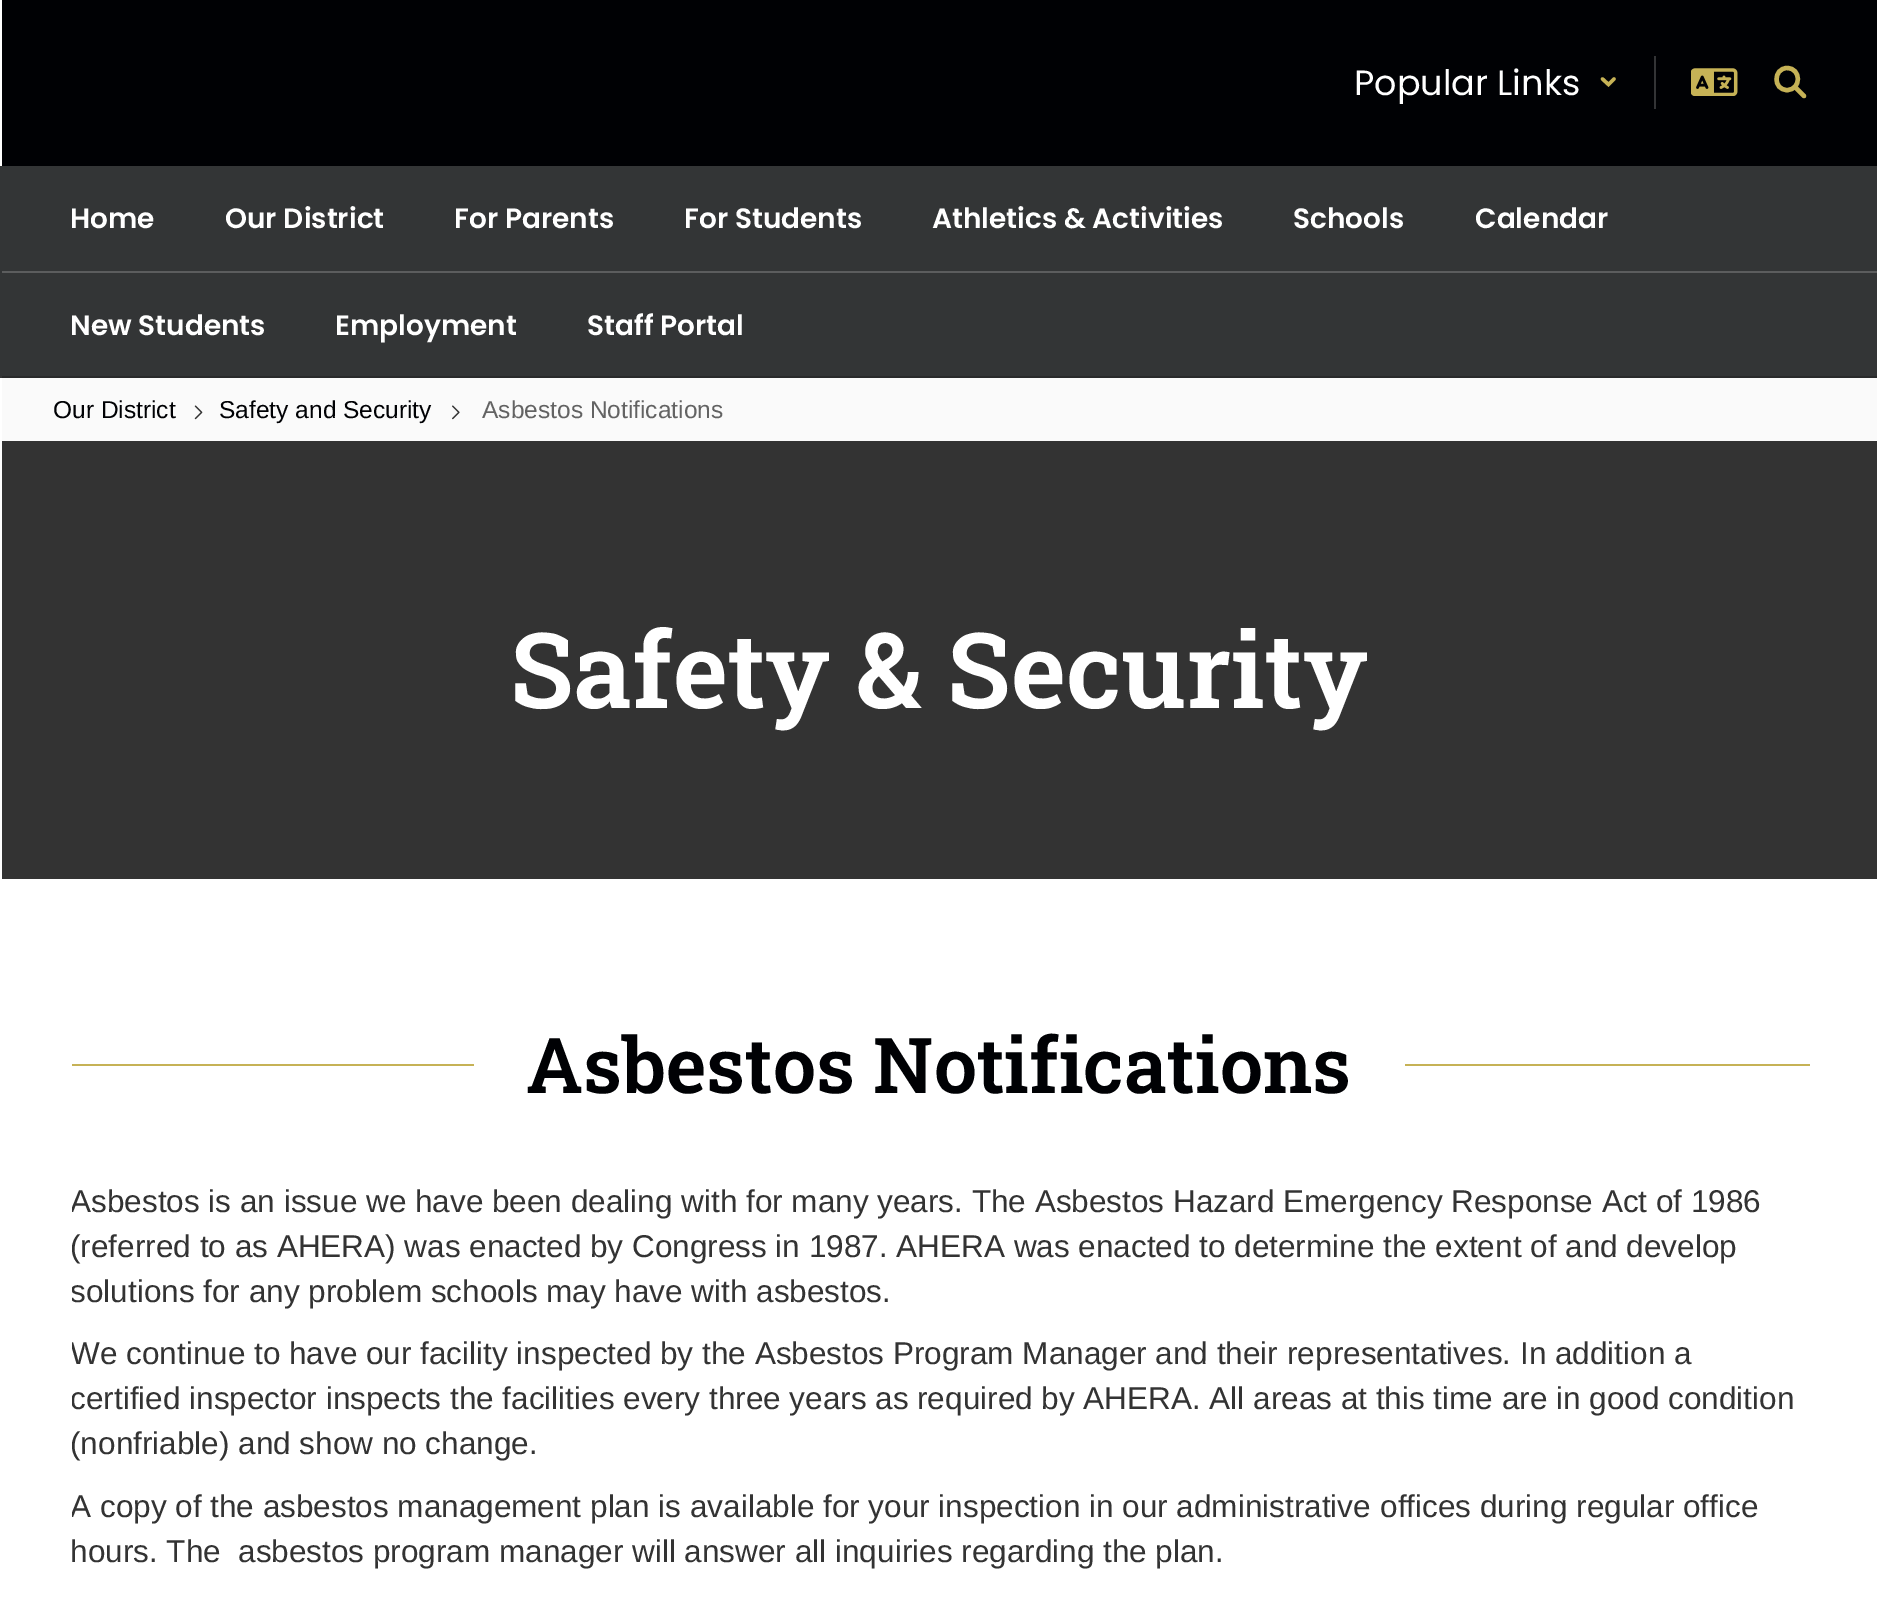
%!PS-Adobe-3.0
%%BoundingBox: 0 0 1877 1616
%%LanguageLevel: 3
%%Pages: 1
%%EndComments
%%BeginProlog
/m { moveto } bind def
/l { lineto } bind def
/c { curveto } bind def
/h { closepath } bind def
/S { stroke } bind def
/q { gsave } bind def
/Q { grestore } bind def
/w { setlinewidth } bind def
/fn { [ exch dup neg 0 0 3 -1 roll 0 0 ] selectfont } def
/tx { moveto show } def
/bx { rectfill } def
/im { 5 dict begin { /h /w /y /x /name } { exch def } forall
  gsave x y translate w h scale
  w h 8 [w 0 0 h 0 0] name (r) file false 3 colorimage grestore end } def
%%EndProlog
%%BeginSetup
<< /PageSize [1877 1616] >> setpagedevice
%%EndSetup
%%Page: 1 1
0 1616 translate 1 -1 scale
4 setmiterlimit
1 setgray
0 0 1877 1616 bx
0 0.004 0.016 setrgbcolor
2 0 1875 166 bx
0.2 0.204 0.212 setrgbcolor
1654 56 2 53 bx
/Poppins-Regular 35 fn
1 setgray
(Popular Links) 1354 95 tx
0.776 0.698 0.337 setrgbcolor
3.5 w
1 setlinecap
1602.5 79 m 1608.5 84.5 l 1614 79 l S
(image0.raw) 1691 68 47 28 im
4.4 w
2 setlinecap
1 setlinejoin
1787 90 m 1801.5 90 1801.5 68 1787 68 c 1773 68.5 1773 90 1787 90 c h S
1 setlinecap
1804 96 m 1795 87 l S
0.2 0.208 0.212 setrgbcolor
0 166 1877 212 bx
/Poppins-SemiBold 28 fn
1 setgray
(Home) 70 228 tx
(Our District) 225 228 tx
(For Parents) 454 228 tx
(For Students) 684 228 tx
(Athletics & Activities) 932 228 tx
(Schools) 1293 228 tx
(Calendar) 1475 228 tx
0.361 0.365 0.369 setrgbcolor
2 271 1875 2 bx
1 setgray
(New Students) 70 335 tx
(Employment) 335 335 tx
(Staff Portal) 587 335 tx
0.161 0.165 0.169 setrgbcolor
2 376 1875 2 bx
0.98 setgray
2 378 1875 63 bx
/LiberationSans-Regular 24.5 fn
0 0.004 0.016 setrgbcolor
(Our District) 53 418 tx
(image1.raw) 194 405 9 15 im
(Safety and Security) 219 418 tx
(image2.raw) 452 405 8 15 im
0.388 setgray
(Asbestos Notifications) 482 418 tx
0.2 setgray
2 441 1875 438 bx
/RobotoSlab-SemiBold 105 fn
1 setgray
(Safety & Security) 510 708 tx
0.776 0.698 0.337 setrgbcolor
72 1064 402 2 bx
/RobotoSlab-SemiBold 77 fn
0 0.004 0.016 setrgbcolor
(Asbestos Notifications) 526 1093 tx
0.776 0.698 0.337 setrgbcolor
1405 1064 405 2 bx
q
72 1181 1738 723 rectclip
/LiberationSans-Regular 31.5 fn
0.2 setgray
(Asbestos is an issue we have been dealing with for many years. The Asbestos Hazard) 70 1212 tx
Q
/LiberationSans-Regular 31.5 fn
0.2 setgray
(Emergency Response Act of 1986) 1283 1212 tx
(\(referred to as AHERA\) was enacted by Congress in 1987. AHERA was enacted to determine the extent of and develop) 70 1257 tx
q
72 1181 1738 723 rectclip
(solutions for any problem schools) 70 1302 tx
Q
(may have with asbestos.) 546 1302 tx
q
72 1181 1738 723 rectclip
(We continue to have our facility inspected by the Asbestos Program Manager and their) 70 1364 tx
Q
(representatives. In addition a) 1287 1364 tx
q
72 1181 1738 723 rectclip
(certified inspector inspects the facilities every three years as) 70 1409 tx
Q
(required by AHERA. All areas at this time are in good condition) 917 1409 tx
(\(nonfriable\) and show no change.) 70 1454 tx
q
72 1181 1738 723 rectclip
(A copy of the asbestos management plan is available for your inspection in our administrative) 70 1517 tx
Q
(offices during regular office) 1380 1517 tx
(hours. The  asbestos program manager will answer all inquiries regarding the plan.) 70 1562 tx
showpage
%%EOF
